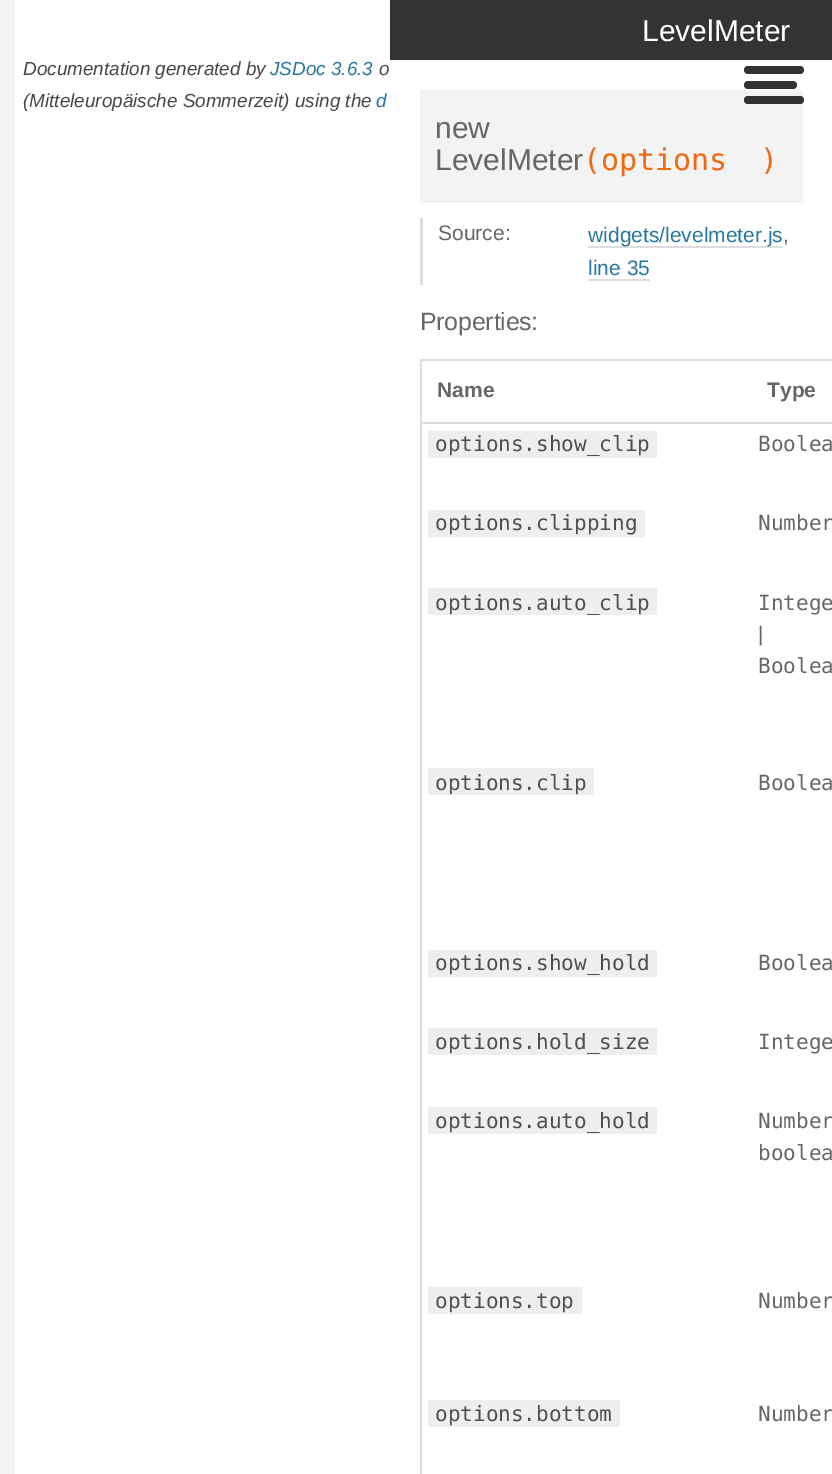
%!PS-Adobe-3.0
%%BoundingBox: 0 0 832 1474
%%LanguageLevel: 3
%%Pages: 1
%%EndComments
%%BeginProlog
/m { moveto } bind def
/f { fill } bind def
/fn { [ exch dup neg 0 0 3 -1 roll 0 0 ] selectfont } def
/tx { moveto show } def
/bx { rectfill } def
/al { dup .setfillconstantalpha .setstrokeconstantalpha } def
/rr { 5 dict begin { /r /h /w /y /x } { exch def } forall
  x r add y moveto x w add y 2 copy h add r arct x w add y h add x 1 index r arct
  x y h add x y r arct x y 2 copy exch w add exch r arct closepath end } def
%%EndProlog
%%BeginSetup
<< /PageSize [832 1474] /PageUsesTransparency true >> setpagedevice
%%EndSetup
%%Page: 1 1
0 .pushpdf14devicefilter
0 1474 translate 1 -1 scale
4 setmiterlimit
1 setgray
0 0 832 1474 bx
0.953 setgray
0 0 15 1474 bx
/LiberationSans-Italic 18.9 fn
0.278 setgray
(Documentation generated by) 23 75 tx
0.145 0.467 0.631 setrgbcolor
(JSDoc 3.6.3) 270 75 tx
0.278 setgray
(o) 379 75 tx
(\(Mitteleuropäische Sommerzeit\) using the) 23 107 tx
0.145 0.467 0.631 setrgbcolor
(d) 376 107 tx
0.2 setgray
390 0 442 60 bx
/LiberationSans-Regular 30 fn
1 setgray
(LevelMeter) 642 41 tx
0.953 setgray
420 90 383 113 bx
0.4 setgray
(new) 435 138 tx
(LevelMeter) 435 170 tx
/DejaVuSansMono-Regular 30 fn
0.933 0.42 0.067 setrgbcolor
(\(options) 583 170 tx
(\)) 760 170 tx
0.867 setgray
420 218 3 67 bx
/LiberationSans-Regular 21 fn
0.4 setgray
(Source:) 438 240 tx
0.867 setgray
588 246 195 2 bx
0.145 0.467 0.631 setrgbcolor
(widgets/levelmeter.js) 588 242 tx
0.4 setgray
(,) 783 242 tx
0.145 0.467 0.631 setrgbcolor
(line 35) 588 275 tx
0.867 setgray
588 279 62 2 bx
/LiberationSans-Regular 25 fn
0.4 setgray
420 330 m -0.25 0 (Properties:) ashow
0.867 setgray
420 359 412 2 bx
420 359 2 1115 bx
420 422 412 2 bx
/LiberationSans-Bold 21 fn
0.4 setgray
(Name) 437 397 tx
(Type) 767 397 tx
0.933 setgray
428 431 229 27 bx
/DejaVuSansMono-Regular 21 fn
0.302 0.306 0.325 setrgbcolor
(options.show_clip) 435 451 tx
0.4 setgray
(Boolea) 758 451 tx
0.933 setgray
428 510 217 27 bx
0.302 0.306 0.325 setrgbcolor
(options.clipping) 435 530 tx
0.4 setgray
(Number) 758 530 tx
0.933 setgray
428 588 229 27 bx
0.302 0.306 0.325 setrgbcolor
(options.auto_clip) 435 610 tx
0.4 setgray
(Intege) 758 610 tx
/LiberationSans-Regular 21 fn
(|) 758 641 tx
/DejaVuSansMono-Regular 21 fn
(Boolea) 758 673 tx
0.933 setgray
428 768 166 27 bx
0.302 0.306 0.325 setrgbcolor
(options.clip) 435 790 tx
0.4 setgray
(Boolea) 758 790 tx
0.933 setgray
428 950 229 27 bx
0.302 0.306 0.325 setrgbcolor
(options.show_hold) 435 970 tx
0.4 setgray
(Boolea) 758 970 tx
0.933 setgray
428 1028 229 27 bx
0.302 0.306 0.325 setrgbcolor
(options.hold_size) 435 1049 tx
0.4 setgray
(Intege) 758 1049 tx
0.933 setgray
428 1107 229 27 bx
0.302 0.306 0.325 setrgbcolor
(options.auto_hold) 435 1128 tx
0.4 setgray
(Number) 758 1128 tx
(boolea) 758 1160 tx
0.933 setgray
428 1287 154 27 bx
0.302 0.306 0.325 setrgbcolor
(options.top) 435 1308 tx
0.4 setgray
(Number) 758 1308 tx
0.933 setgray
428 1400 192 27 bx
0.302 0.306 0.325 setrgbcolor
(options.bottom) 435 1421 tx
0.4 setgray
(Number) 758 1421 tx
0.2 setgray
744 81 53 8 4 rr f
744 66 60 8 4 rr f
0.8 al
0 setgray
744 96 60 8 4 rr f
.poppdf14devicefilter showpage
%%EOF
